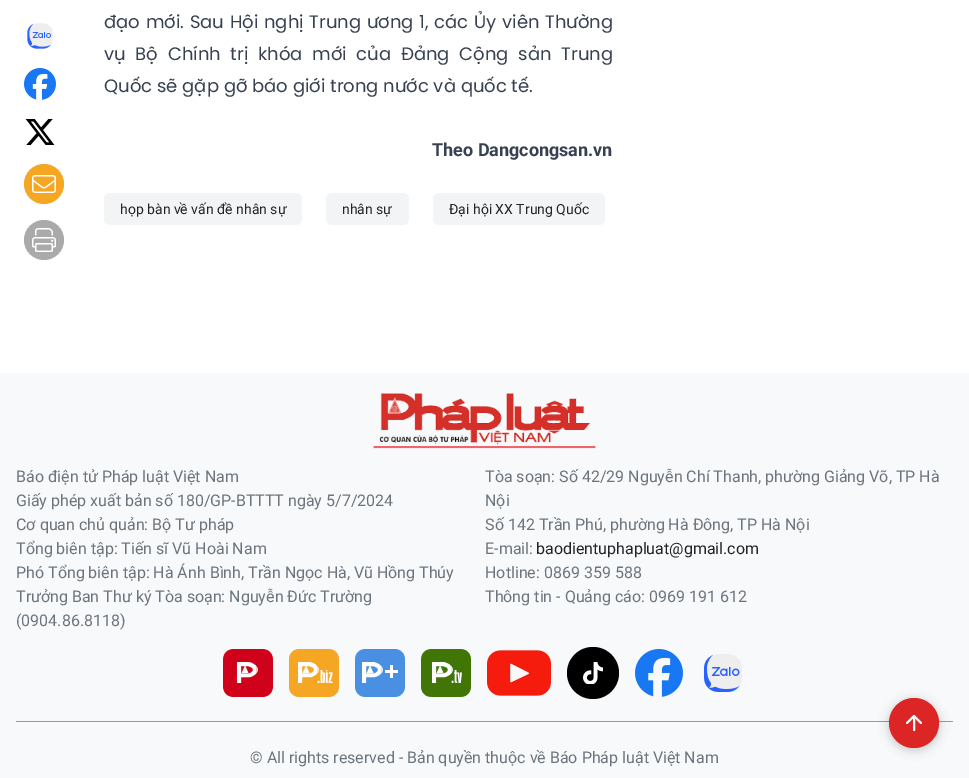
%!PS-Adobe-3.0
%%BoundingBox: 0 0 969 778
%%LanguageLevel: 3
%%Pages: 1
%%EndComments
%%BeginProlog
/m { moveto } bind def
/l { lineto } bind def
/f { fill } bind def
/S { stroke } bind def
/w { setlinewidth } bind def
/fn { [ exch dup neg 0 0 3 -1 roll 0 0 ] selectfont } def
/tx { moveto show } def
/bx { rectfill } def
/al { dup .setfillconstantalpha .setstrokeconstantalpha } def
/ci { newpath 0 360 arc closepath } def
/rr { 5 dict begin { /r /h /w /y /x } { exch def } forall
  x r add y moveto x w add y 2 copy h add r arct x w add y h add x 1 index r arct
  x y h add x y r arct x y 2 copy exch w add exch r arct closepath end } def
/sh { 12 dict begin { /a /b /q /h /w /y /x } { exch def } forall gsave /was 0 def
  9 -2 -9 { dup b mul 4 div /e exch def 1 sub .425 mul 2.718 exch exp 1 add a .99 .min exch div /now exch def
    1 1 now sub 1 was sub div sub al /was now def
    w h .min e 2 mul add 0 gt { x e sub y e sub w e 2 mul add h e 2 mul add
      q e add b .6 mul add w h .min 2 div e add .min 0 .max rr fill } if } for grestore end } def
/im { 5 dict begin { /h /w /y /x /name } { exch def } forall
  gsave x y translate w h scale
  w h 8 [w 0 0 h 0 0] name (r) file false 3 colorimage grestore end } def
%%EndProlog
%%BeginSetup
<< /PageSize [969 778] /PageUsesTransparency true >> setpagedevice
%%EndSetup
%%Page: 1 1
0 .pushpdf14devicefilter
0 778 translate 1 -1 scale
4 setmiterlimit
1 setgray
0 0 969 778 bx
(image0.raw) 27 23 26 26 im
(image1.raw) 24 68 32 32 im
(image2.raw) 25 119 30 26 im
0.961 0.651 0.137 setrgbcolor
44 184 20 ci f
(image3.raw) 32 175 24 18 im
0.667 setgray
44 240 20 ci f
(image4.raw) 32 228 24 24 im
/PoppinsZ-Regular 18 fn
0.216 0.255 0.318 setrgbcolor
104 28 m 1 0 32 (đạo mới. Sau Hội nghị Trung ương 1, các Ủy viên Thường) widthshow
104 60 m 5 0 32 (vụ Bộ Chính trị khóa mới của Đảng Cộng sản Trung) widthshow
(Quốc sẽ gặp gỡ báo giới trong nước và quốc tế.) 104 92 tx
/Roboto-Bold 18 fn
(Theo Dangcongsan.vn) 432 156 tx
0.953 0.957 0.965 setrgbcolor
104 193 198 32 6 rr f
/Roboto-Regular 14 fn
0.129 0.145 0.161 setrgbcolor
(họp bàn về vấn đề nhân sự) 120 214 tx
0.953 0.957 0.965 setrgbcolor
326 193 83 32 6 rr f
0.129 0.145 0.161 setrgbcolor
(nhân sự) 342 214 tx
0.953 0.957 0.965 setrgbcolor
433 193 172 32 6 rr f
0.129 0.145 0.161 setrgbcolor
(Đại hội XX Trung Quốc) 449 214 tx
0.973 0.976 0.98 setrgbcolor
0 373 969 405 bx
(image5.raw) 373 393 223 56 im
/Roboto-Regular 16 fn
0.424 0.459 0.49 setrgbcolor
(Báo điện tử Pháp luật Việt Nam) 16 482 tx
(Giấy phép xuất bản số 180/GP-BTTTT ngày 5/7/2024) 16 506 tx
(Cơ quan chủ quản: Bộ Tư pháp) 16 530 tx
(Tổng biên tập: Tiến sĩ Vũ Hoài Nam) 16 554 tx
(Phó Tổng biên tập: Hà Ánh Bình, Trần Ngọc Hà, Vũ Hồng Thúy) 16 578 tx
(Trưởng Ban Thư ký Tòa soạn: Nguyễn Đức Trường) 16 602 tx
(\(0904.86.8118\)) 16 626 tx
(Tòa soạn: Số 42/29 Nguyễn Chí Thanh, phường Giảng Võ, TP Hà) 485 482 tx
(Nội) 485 506 tx
(Số 142 Trần Phú, phường Hà Đông, TP Hà Nội) 485 530 tx
(E-mail:) 485 554 tx
0.129 0.145 0.161 setrgbcolor
(baodientuphapluat@gmail.com) 536 554 tx
0.424 0.459 0.49 setrgbcolor
(Hotline: 0869 359 588) 485 578 tx
(Thông tin - Quảng cáo: 0969 191 612) 485 602 tx
0.973 0.443 0.443 setrgbcolor
16 721 937 1 bx
(image6.raw) 223 649 50 48 im
(image7.raw) 289 649 50 48 im
(image8.raw) 355 649 50 48 im
(image9.raw) 421 649 50 48 im
(image10.raw) 487 650 64 46 im
0 setgray
593 673 26 ci f
(image11.raw) 583 662 20 22 im
(image12.raw) 635 649 48 48 im
(image13.raw) 704 654 38 38 im
0.424 0.459 0.49 setrgbcolor
(© All rights reserved - Bản quyền thuộc về Báo Pháp luật Việt Nam) 250 763 tx
0 setgray
889 700 50 50 25 5 0.2 sh
0.863 0.149 0.149 setrgbcolor
914 723 25 ci f
1 setgray
2 w
1 setlinecap
1 setlinejoin
914 730 m 914 716 l 907 723 m 914 716 l 921 723 l S
.poppdf14devicefilter showpage
%%EOF
